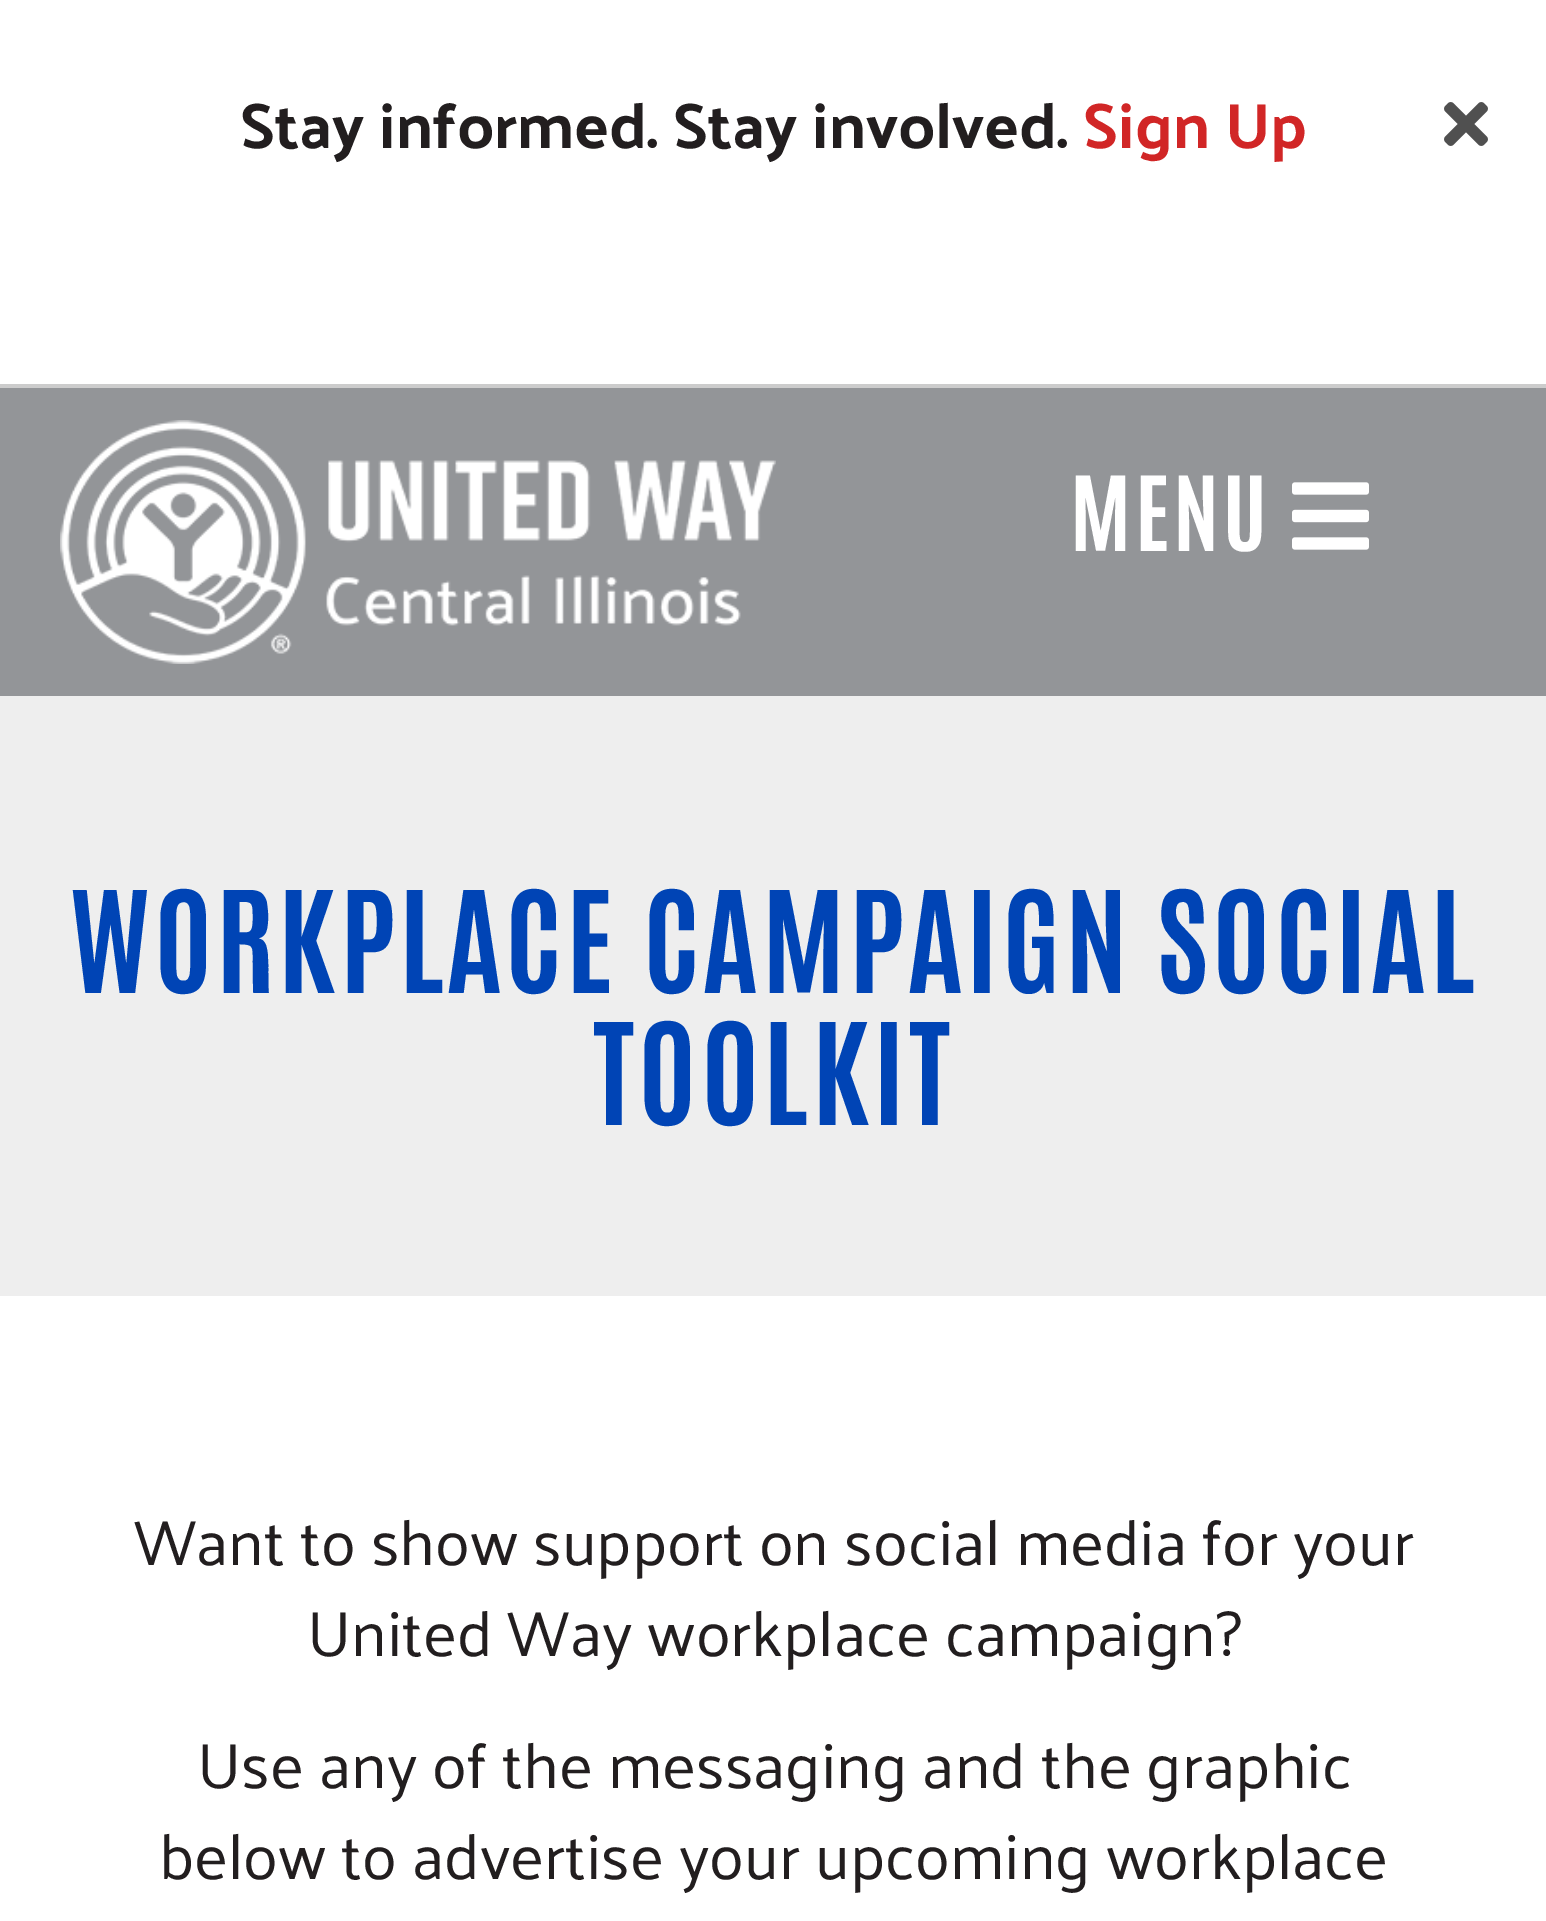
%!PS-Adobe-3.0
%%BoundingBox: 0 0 1546 1921
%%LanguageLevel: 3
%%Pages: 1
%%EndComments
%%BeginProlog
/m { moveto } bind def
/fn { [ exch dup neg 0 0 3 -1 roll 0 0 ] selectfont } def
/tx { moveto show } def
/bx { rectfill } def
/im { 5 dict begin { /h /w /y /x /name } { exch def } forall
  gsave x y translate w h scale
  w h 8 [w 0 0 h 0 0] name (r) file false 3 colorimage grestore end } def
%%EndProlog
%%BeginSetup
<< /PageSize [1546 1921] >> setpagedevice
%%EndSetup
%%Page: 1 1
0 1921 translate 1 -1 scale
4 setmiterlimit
1 setgray
0 0 1546 1921 bx
0.8 setgray
0 384 1546 4 bx
/Palanquin-Bold 64 fn
0.133 0.118 0.122 setrgbcolor
(Stay informed. Stay involved.) 240 148 tx
0.82 0.149 0.149 setrgbcolor
(Sign Up) 1083 148 tx
(image0.raw) 1444 102 44 44 im
0.576 0.584 0.596 setrgbcolor
0 388 1546 308 bx
(image1.raw) 60 420 716 244 im
/Antonio-Bold 88 fn
1 setgray
1070 551 m 4 0 (MENU) ashow
(image2.raw) 1292 482 77 68 im
0.933 setgray
0 696 1546 600 bx
/Antonio-Bold 120 fn
0 0.267 0.71 setrgbcolor
70 993 m 4 0 (WORKPLACE CAMPAIGN SOCIAL) ashow
593 1125 m 4 0 (TOOLKIT) ashow
/Palanquin-Regular 64 fn
0.133 0.118 0.122 setrgbcolor
(Want to show support on social media for your) 134 1565 tx
(United Way workplace campaign?) 307 1656 tx
(Use any of the messaging and the graphic) 197 1788 tx
(below to advertise your upcoming workplace) 159 1879 tx
showpage
%%EOF
